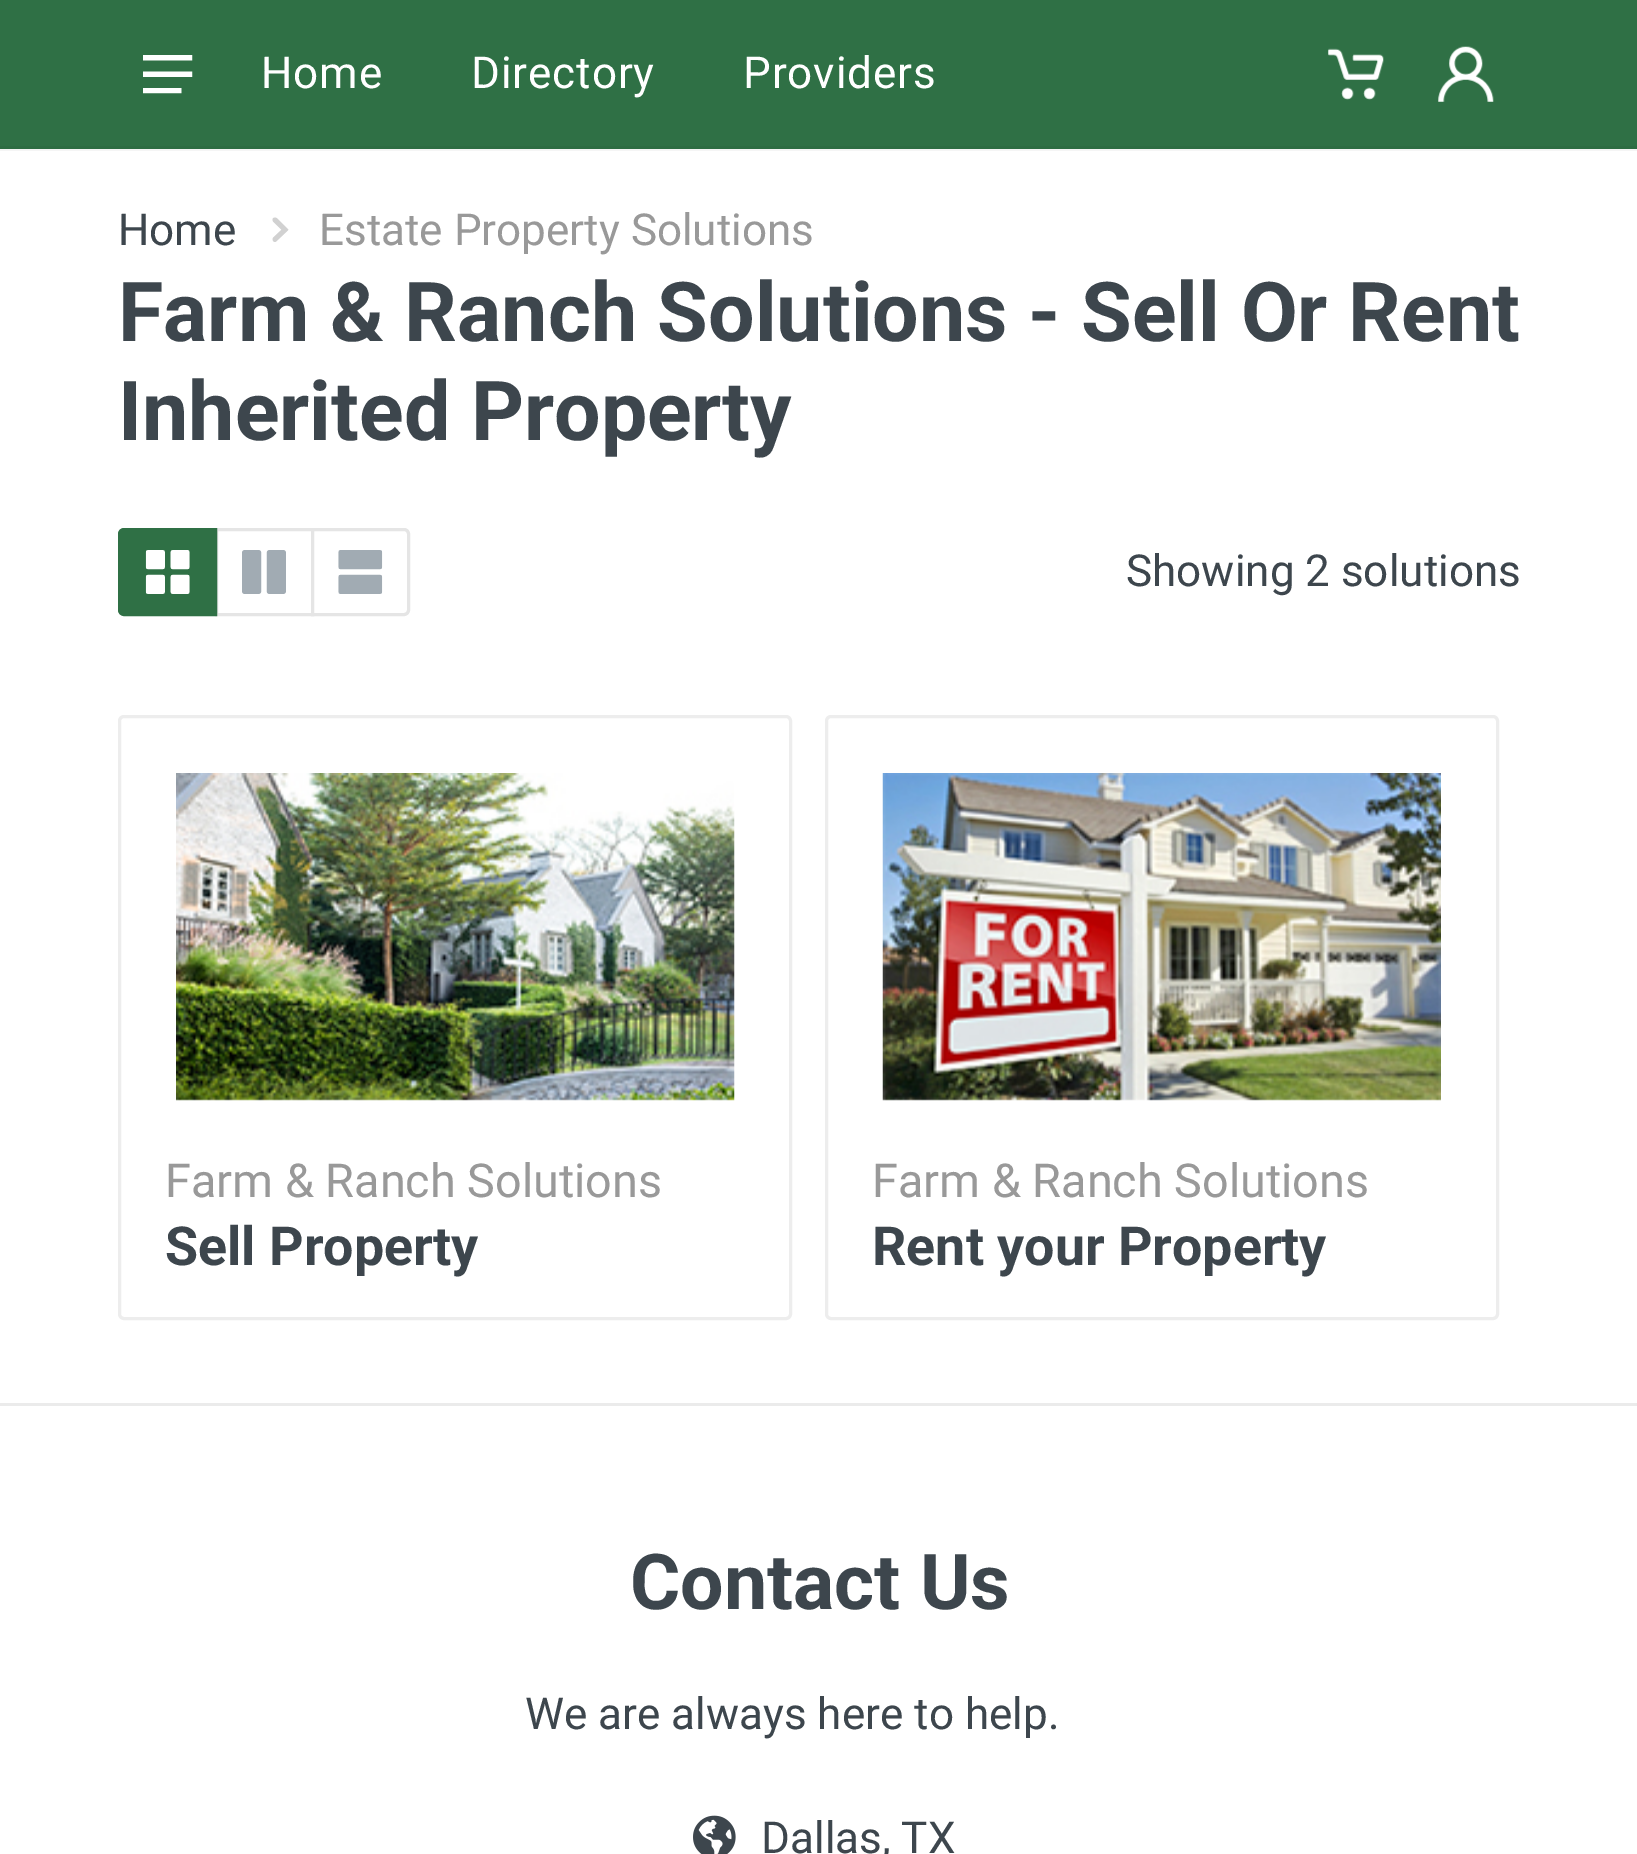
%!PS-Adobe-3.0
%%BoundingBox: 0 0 1637 1854
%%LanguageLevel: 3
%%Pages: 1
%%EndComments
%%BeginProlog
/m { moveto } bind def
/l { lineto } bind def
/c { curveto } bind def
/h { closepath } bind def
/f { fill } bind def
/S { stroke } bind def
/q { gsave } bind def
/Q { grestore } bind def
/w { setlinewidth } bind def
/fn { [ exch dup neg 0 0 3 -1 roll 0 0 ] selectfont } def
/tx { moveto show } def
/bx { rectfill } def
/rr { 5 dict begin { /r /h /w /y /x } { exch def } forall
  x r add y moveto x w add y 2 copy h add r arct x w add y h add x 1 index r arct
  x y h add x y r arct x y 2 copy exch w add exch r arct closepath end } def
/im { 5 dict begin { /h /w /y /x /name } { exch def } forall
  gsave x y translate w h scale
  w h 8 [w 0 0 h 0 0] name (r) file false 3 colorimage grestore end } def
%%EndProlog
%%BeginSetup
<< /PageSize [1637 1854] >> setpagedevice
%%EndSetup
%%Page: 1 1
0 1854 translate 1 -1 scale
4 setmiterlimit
1 setgray
0 0 1637 1854 bx
0.961 setgray
0 149 1637 2 bx
0.184 0.439 0.271 setrgbcolor
0 0 1637 146 bx
0.176 0.424 0.259 setrgbcolor
0 146 1637 3 bx
(image0.raw) 143 55 50 39 im
/Roboto-Regular 44 fn
1 setgray
261 88 m 0.9 0 (Home) ashow
471 88 m 0.9 0 (Directory) ashow
743 88 m 0.9 0 (Providers) ashow
(image1.raw) 1328 48 56 52 im
(image2.raw) 1438 46 56 56 im
0.239 0.275 0.302 setrgbcolor
(Home) 118 245 tx
(image3.raw) 272 217 17 25 im
0.6 setgray
(Estate Property Solutions) 319 245 tx
/Roboto-Bold 82.5 fn
0.239 0.275 0.302 setrgbcolor
(Farm & Ranch Solutions - Sell Or Rent) 118 341 tx
(Inherited Property) 118 440 tx
0.898 setgray
3 w
216.5 529.5 96 85 rectstroke
0.184 0.439 0.271 setrgbcolor
124 529.5 m 215.5 529.5 l 215.5 614.5 l 124 614.5 l 121.5 614.5 119.5 612.5 119.5 610 c 119.5 534 l 119.5 531.5 121.5 529.5 124 529.5 c h q f Q
S
(image4.raw) 145 550 45 44 im
(image5.raw) 242 550 44 44 im
1 setgray
312.5 529.5 m 404 529.5 l 406.5 529.5 408.5 531.5 408.5 534 c 408.5 610 l 408.5 612.5 406.5 614.5 404 614.5 c 312.5 614.5 l h q f Q
0.898 setgray
S
(image6.raw) 338 550 45 44 im
/Roboto-Regular 44 fn
0.239 0.275 0.302 setrgbcolor
(Showing 2 solutions) 1126 586 tx
(image7.raw) 176 773 559 328 im
0.929 setgray
119.5 716.5 671 602 4.5 rr S
/Roboto-Regular 46.75 fn
0.6 setgray
(Farm & Ranch Solutions) 165 1197 tx
/Roboto-Bold 53.75 fn
0.239 0.275 0.302 setrgbcolor
(Sell Property) 165 1265 tx
(image8.raw) 882 773 559 328 im
0.929 setgray
826.5 716.5 671 602 4.5 rr S
/Roboto-Regular 46.75 fn
0.6 setgray
(Farm & Ranch Solutions) 872 1197 tx
/Roboto-Bold 53.75 fn
0.239 0.275 0.302 setrgbcolor
(Rent your Property) 872 1265 tx
0.922 setgray
0 1403 1637 3 bx
/Roboto-Bold 77 fn
0.239 0.275 0.302 setrgbcolor
(Contact Us) 630 1609 tx
/Roboto-Regular 44 fn
(We are always here to help.) 525 1729 tx
(image9.raw) 693 1815 43 39 im
(Dallas, TX) 761 1853 tx
showpage
%%EOF
